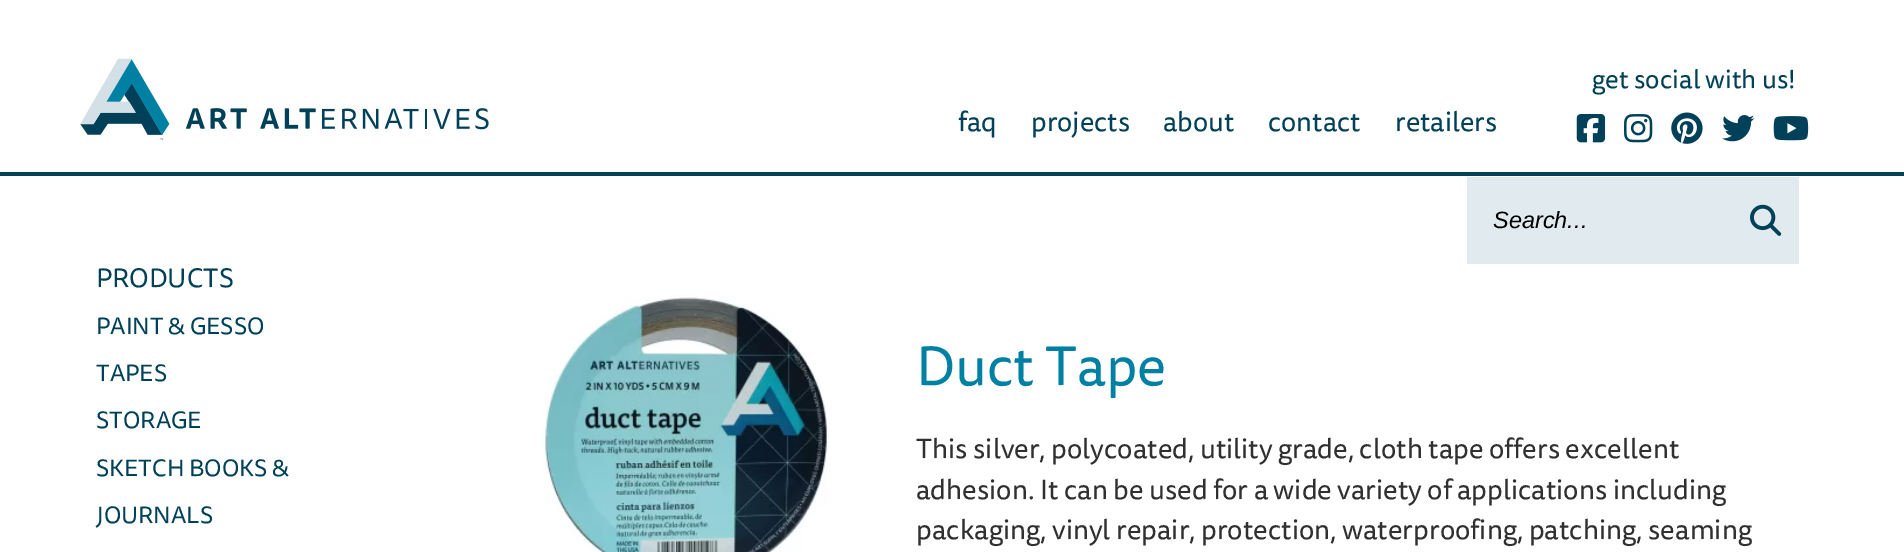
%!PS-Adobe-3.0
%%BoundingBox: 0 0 1904 552
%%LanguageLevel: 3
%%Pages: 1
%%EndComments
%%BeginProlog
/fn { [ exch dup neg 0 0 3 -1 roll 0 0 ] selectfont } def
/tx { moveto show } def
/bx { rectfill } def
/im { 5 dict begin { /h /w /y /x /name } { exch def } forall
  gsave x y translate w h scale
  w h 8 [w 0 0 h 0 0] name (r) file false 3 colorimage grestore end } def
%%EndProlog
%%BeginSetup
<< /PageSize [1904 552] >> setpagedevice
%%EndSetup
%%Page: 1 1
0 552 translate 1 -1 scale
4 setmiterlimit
1 setgray
0 0 1904 552 bx
0 0.255 0.349 setrgbcolor
0 172 1904 4 bx
(image0.raw) 80 58 409 82 im
/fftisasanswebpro-Regular 26 fn
(get social with us!) 1592 88 tx
(image1.raw) 1576 114 30 29 im
(image2.raw) 1624 114 29 29 im
(image3.raw) 1671 112 32 32 im
(image4.raw) 1722 115 33 27 im
(image5.raw) 1773 116 36 25 im
/fftisasanswebpro-Regular 27.5 fn
(faq) 958 131 tx
(projects) 1031 131 tx
(about) 1163 131 tx
(contact) 1268 131 tx
(retailers) 1395 131 tx
0.882 0.918 0.933 setrgbcolor
1467 177 332 87 bx
/LiberationSans-Italic 23.5 fn
0 setgray
(Search...) 1493 228 tx
(image6.raw) 1750 204 32 32 im
/fftisasanswebpro-Regular 26.5 fn
0 0.255 0.349 setrgbcolor
(PRODUCTS) 96 287 tx
/fftisasanswebpro-Regular 23.5 fn
(PAINT & GESSO) 96 334 tx
(TAPES) 96 381 tx
(STORAGE) 96 428 tx
(SKETCH BOOKS &) 96 476 tx
(JOURNALS) 96 523 tx
(image7.raw) 541 295 289 257 im
/fftisasanswebpro-Regular 55.5 fn
0 0.506 0.639 setrgbcolor
(Duct Tape) 916 385 tx
/fftisasanswebpro-Regular 27.75 fn
0.188 setgray
(This silver, polycoated, utility grade, cloth tape offers excellent) 916 458 tx
(adhesion. It can be used for a wide variety of applications including) 916 499 tx
(packaging, vinyl repair, protection, waterproofing, patching, seaming) 916 539 tx
showpage
%%EOF
